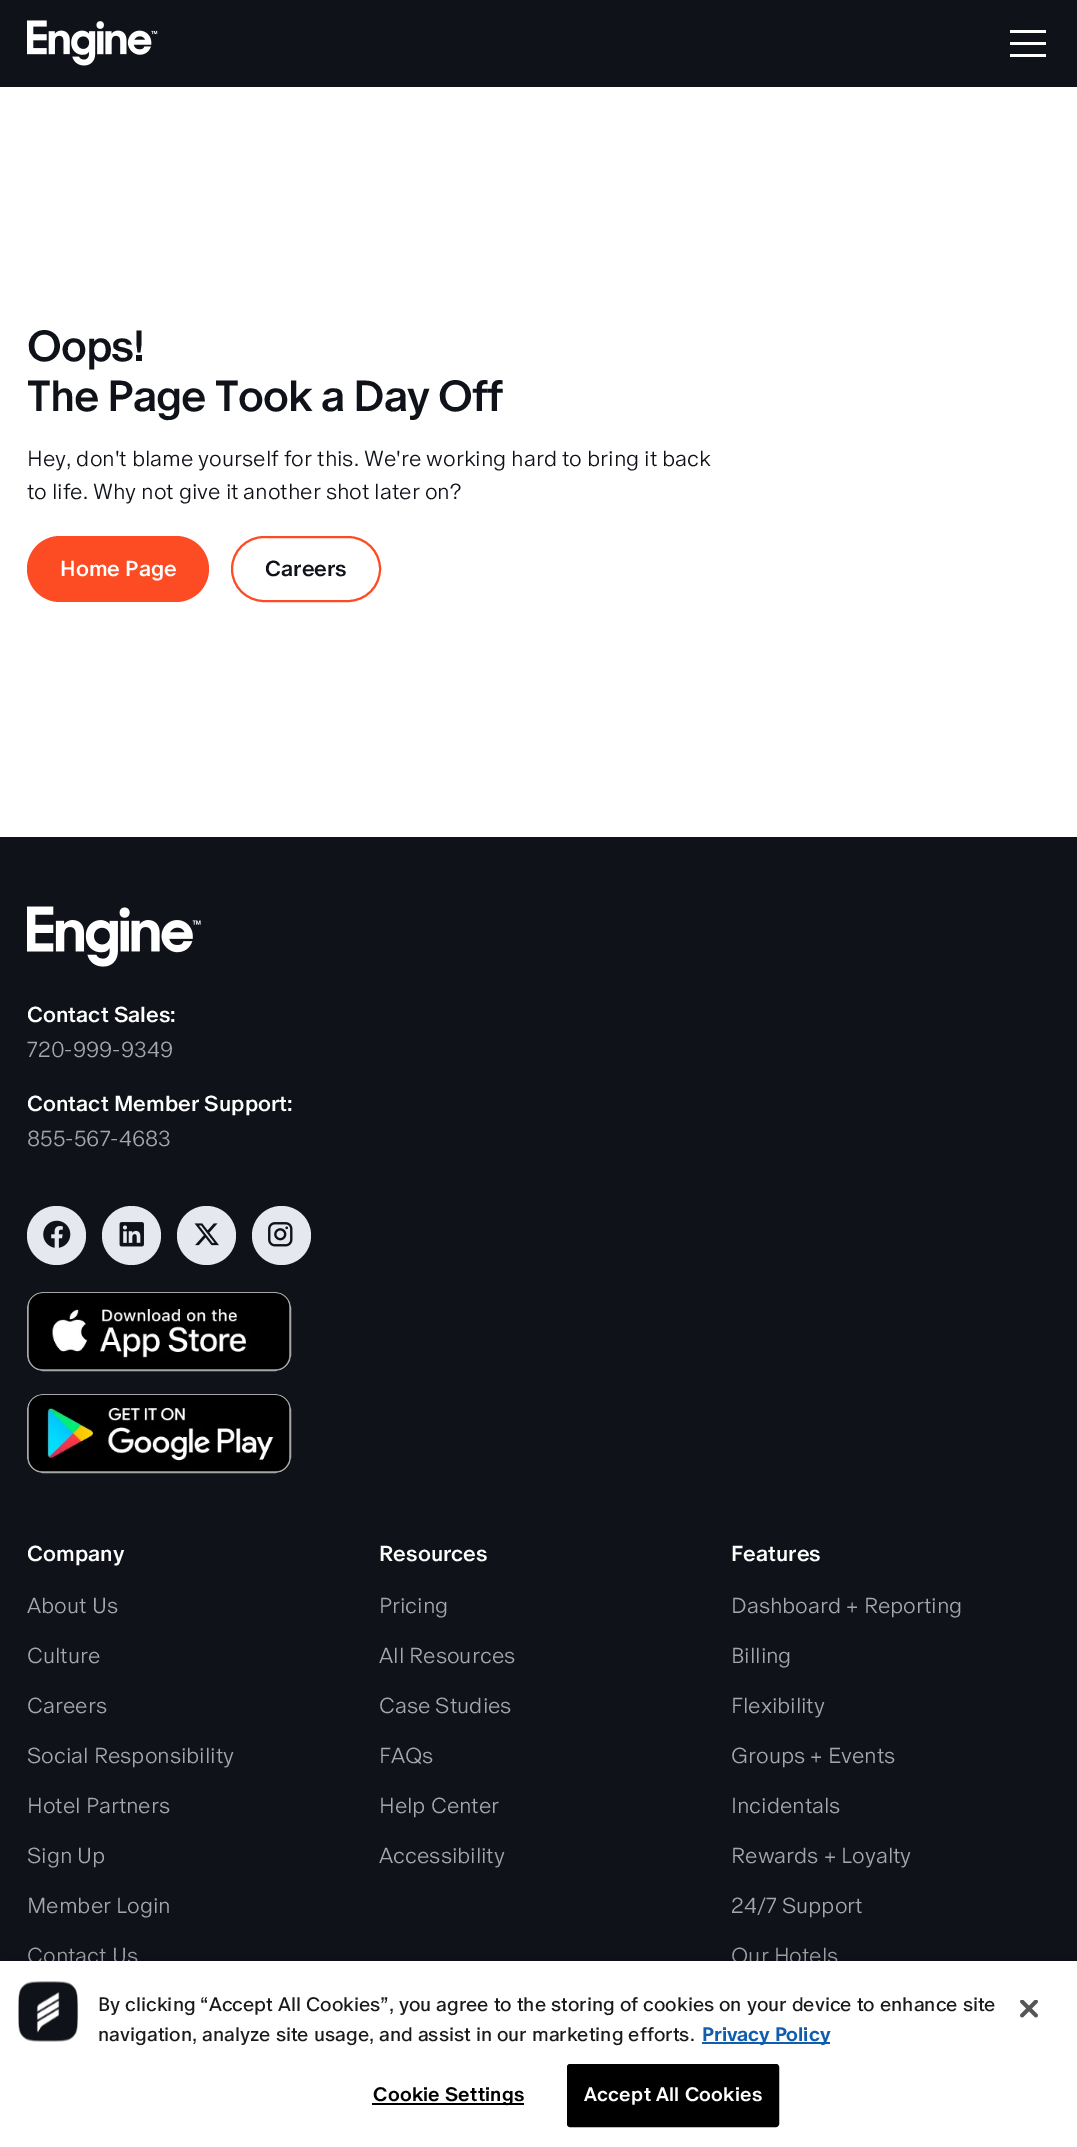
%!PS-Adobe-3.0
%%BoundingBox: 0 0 1077 2147
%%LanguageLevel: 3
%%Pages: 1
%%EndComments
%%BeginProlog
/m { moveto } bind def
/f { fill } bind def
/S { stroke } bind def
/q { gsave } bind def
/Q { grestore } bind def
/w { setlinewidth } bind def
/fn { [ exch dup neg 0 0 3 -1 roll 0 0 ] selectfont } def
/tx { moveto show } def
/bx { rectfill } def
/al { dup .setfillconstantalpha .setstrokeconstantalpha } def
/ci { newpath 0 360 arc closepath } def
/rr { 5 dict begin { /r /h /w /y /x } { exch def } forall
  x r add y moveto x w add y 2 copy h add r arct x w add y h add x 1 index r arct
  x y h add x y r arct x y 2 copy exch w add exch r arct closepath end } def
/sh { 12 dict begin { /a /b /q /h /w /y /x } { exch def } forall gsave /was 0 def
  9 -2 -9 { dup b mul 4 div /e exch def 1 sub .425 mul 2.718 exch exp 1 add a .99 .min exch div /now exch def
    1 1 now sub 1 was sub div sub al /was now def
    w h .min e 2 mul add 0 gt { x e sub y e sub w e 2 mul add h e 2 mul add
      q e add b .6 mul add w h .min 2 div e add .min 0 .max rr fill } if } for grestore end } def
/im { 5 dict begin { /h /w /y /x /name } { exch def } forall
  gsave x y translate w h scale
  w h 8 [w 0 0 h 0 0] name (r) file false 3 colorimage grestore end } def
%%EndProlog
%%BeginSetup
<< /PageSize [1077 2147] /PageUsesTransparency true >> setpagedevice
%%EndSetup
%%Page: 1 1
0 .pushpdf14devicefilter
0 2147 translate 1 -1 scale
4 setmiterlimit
1 setgray
0 0 1077 2147 bx
0.063 0.071 0.102 setrgbcolor
0 0 1077 87 bx
(image0.raw) 27 20 131 46 im
1 setgray
1010 30 36 3 bx
1010 42 36 3 bx
1010 54 36 3 bx
/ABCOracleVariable-Medium 43.4 fn
0.063 0.071 0.102 setrgbcolor
27 361 m -1.1 0 (Oops!) ashow
27 411 m -1.1 0 (The Page Took a Day Off) ashow
/ABCOracleVariable-Light 21.7 fn
(Hey, don't blame yourself for this. We're working hard to bring it back) 27 466 tx
(to life. Why not give it another shot later on?) 27 499 tx
0.992 0.294 0.137 setrgbcolor
27 536 182 66 33 rr f
/ABCOracleVariable-Medium 21.7 fn
1 setgray
(Home Page) 60 576 tx
0.992 0.294 0.137 setrgbcolor
2 w
232 537 148 64 32 rr S
0.063 0.071 0.102 setrgbcolor
(Careers) 265 576 tx
0 837 1077 1124 bx
(image1.raw) 27 906 174 61 im
1 setgray
(Contact Sales:) 27 1022 tx
/ABCOracleVariable-Light 21.7 fn
0.647 0.655 0.678 setrgbcolor
(720-999-9349) 27 1057 tx
/ABCOracleVariable-Medium 21.7 fn
1 setgray
(Contact Member Support:) 27 1111 tx
/ABCOracleVariable-Light 21.7 fn
0.647 0.655 0.678 setrgbcolor
(855-567-4683) 27 1146 tx
0.902 0.91 0.941 setrgbcolor
56.5 1235.5 29.5 ci f
(image2.raw) 43 1220 28 28 im
131.5 1235.5 29.5 ci f
(image3.raw) 119 1222 25 25 im
206.5 1235.5 29.5 ci f
(image4.raw) 194 1223 25 23 im
281.5 1235.5 29.5 ci f
(image5.raw) 268 1222 25 25 im
0.651 setgray
28 1293 262 77 16 rr S
(image6.raw) 28 1293 262 77 im
28 1395 262 77 16 rr S
(image7.raw) 28 1395 262 77 im
/ABCOracleVariable-Medium 21.7 fn
1 setgray
(Company) 27 1561 tx
/ABCOracleVariable-Light 21.7 fn
0.647 0.655 0.678 setrgbcolor
(About Us) 27 1613 tx
(Culture) 27 1663 tx
(Careers) 27 1713 tx
(Social Responsibility) 27 1763 tx
(Hotel Partners) 27 1813 tx
(Sign Up) 27 1863 tx
(Member Login) 27 1913 tx
(Contact Us) 27 1963 tx
/ABCOracleVariable-Medium 21.7 fn
1 setgray
(Resources) 379 1561 tx
/ABCOracleVariable-Light 21.7 fn
0.647 0.655 0.678 setrgbcolor
(Pricing) 379 1613 tx
(All Resources) 379 1663 tx
(Case Studies) 379 1713 tx
(FAQs) 379 1763 tx
(Help Center) 379 1813 tx
(Accessibility) 379 1863 tx
/ABCOracleVariable-Medium 21.7 fn
1 setgray
(Features) 731 1561 tx
/ABCOracleVariable-Light 21.7 fn
0.647 0.655 0.678 setrgbcolor
(Dashboard + Reporting) 731 1613 tx
(Billing) 731 1663 tx
(Flexibility) 731 1713 tx
(Groups + Events) 731 1763 tx
(Incidentals) 731 1813 tx
(Rewards + Loyalty) 731 1863 tx
(24/7 Support) 731 1913 tx
(Our Hotels) 731 1963 tx
0 setgray
0 1961 1077 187 0 13.5 0.2 sh
1 setgray
0 1961 1077 186 bx
(image8.raw) 18 1981 61 61 im
/ABCOracleVariable-Regular 19.5 fn
0.102 setgray
(By clicking “Accept All Cookies”, you agree to the storing of cookies on your device to enhance site) 98 2011 tx
(navigation, analyze site usage, and assist in our marketing efforts.) 98 2041 tx
0.059 0.365 0.675 setrgbcolor
702 2042 128 2 bx
/ABCOracleVariable-Bold 19.5 fn
(Privacy Policy) 702 2041 tx
0 setgray
372 2103 152 2 bx
/ABCOracleVariable-SemiBold 19.5 fn
373 2101 m 0.25 0 (Cookie Settings) ashow
568 2065 210 61 2 rr q f Q
S
1 setgray
584 2101 m 0.25 0 (Accept All Cookies) ashow
(image9.raw) 1020 2000 18 18 im
.poppdf14devicefilter showpage
%%EOF
